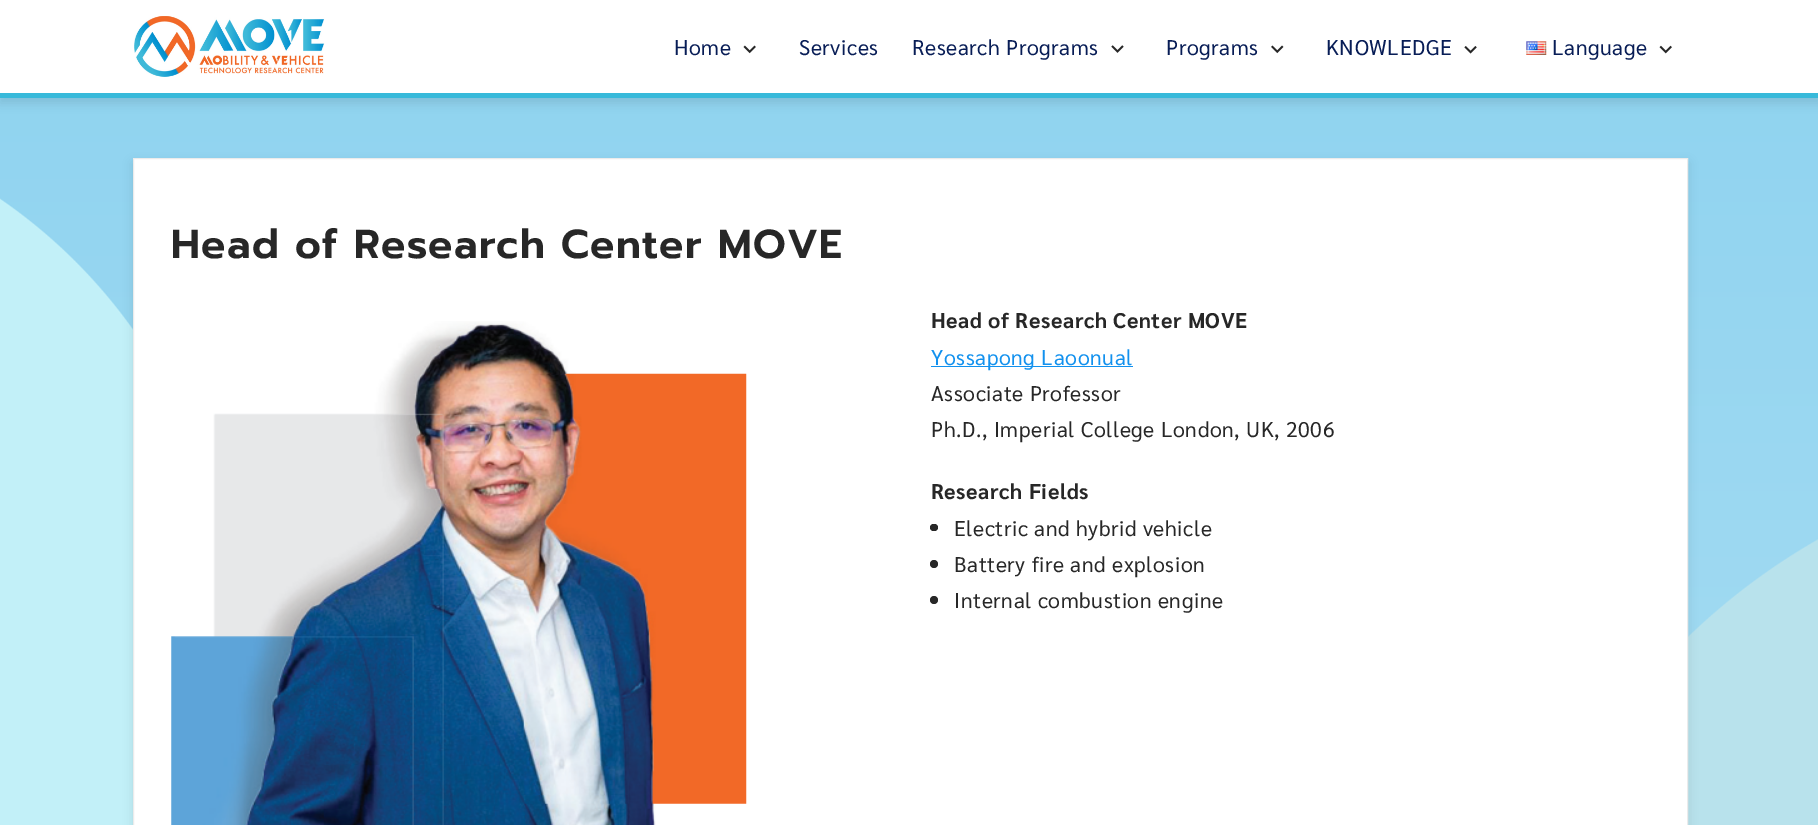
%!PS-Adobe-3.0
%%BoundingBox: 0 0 1818 825
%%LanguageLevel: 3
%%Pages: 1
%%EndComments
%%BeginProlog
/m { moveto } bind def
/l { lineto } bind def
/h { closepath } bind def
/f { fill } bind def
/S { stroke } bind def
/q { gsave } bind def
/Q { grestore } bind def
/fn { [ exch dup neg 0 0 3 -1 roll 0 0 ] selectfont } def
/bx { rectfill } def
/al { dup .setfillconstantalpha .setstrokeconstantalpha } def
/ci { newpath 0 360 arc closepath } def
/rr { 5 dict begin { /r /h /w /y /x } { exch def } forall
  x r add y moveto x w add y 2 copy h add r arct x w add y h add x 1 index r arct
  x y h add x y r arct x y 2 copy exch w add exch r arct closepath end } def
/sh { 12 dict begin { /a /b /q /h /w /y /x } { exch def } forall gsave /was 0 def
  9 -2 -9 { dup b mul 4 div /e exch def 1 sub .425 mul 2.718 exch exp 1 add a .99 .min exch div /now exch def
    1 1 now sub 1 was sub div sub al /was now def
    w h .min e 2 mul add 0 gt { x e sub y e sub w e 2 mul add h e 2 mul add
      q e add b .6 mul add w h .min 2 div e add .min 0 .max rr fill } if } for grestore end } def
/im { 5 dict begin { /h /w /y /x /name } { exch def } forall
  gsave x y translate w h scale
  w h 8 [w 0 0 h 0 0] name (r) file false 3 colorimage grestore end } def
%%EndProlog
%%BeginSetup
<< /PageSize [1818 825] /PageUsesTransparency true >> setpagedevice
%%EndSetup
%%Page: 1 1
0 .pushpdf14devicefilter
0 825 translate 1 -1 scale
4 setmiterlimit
1 setgray
0 0 1818 825 bx
(image0.raw) 0 98 1818 727 im
0 setgray
0 5 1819 98 0 5 0.1 sh
1 setgray
0 0 1818 93 bx
0.216 0.725 0.855 setrgbcolor
0 93 1818 5 bx
(image1.raw) 134 16 191 61 im
/Sarabun-Regular 21.25 fn
0.031 0.114 0.337 setrgbcolor
674 55 m 0.6 0 (Home) ashow
(image2.raw) 743 45 13 9 im
799 55 m 0.6 0 (Services) ashow
912 55 m 0.6 0 (Research Programs) ashow
(image3.raw) 1111 45 13 8 im
1166 55 m 0.6 0 (Programs) ashow
(image4.raw) 1271 45 13 9 im
1326 55 m 0.6 0 (KNOWLEDGE) ashow
(image5.raw) 1464 46 13 8 im
(image6.raw) 1526 41 21 14 im
1552 55 m 0.6 0 (Language) ashow
(image7.raw) 1659 45 13 9 im
0 setgray
133 163 1555 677 0 5 0.1 sh
1 setgray
133.5 158.5 m 1687.5 158.5 l 1687.5 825.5 l 133.5 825.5 l h q f Q
0.922 setgray
S
/Prompt-SemiBold 40.4 fn
0.153 setgray
171 258 m 1.25 0 (Head of Research Center MOVE) ashow
(image8.raw) 171 321 576 504 im
/Sarabun-Bold 21.25 fn
931 328 m 0.6 0 (Head of Research Center MOVE) ashow
0.071 0.569 0.933 setrgbcolor
931 366 202 1 bx
/Sarabun-Regular 21.25 fn
931 365 m 0.6 0 (Yossapong Laoonual) ashow
0.153 setgray
931 401 m 0.6 0 (Associate Professor) ashow
931 437 m 0.6 0 (Ph.D., Imperial College London, UK, 2006) ashow
/Sarabun-Bold 21.25 fn
931 499 m 0.6 0 (Research Fields) ashow
930 524 8 7 3.5 rr f
/Sarabun-Regular 21.25 fn
954 536 m 0.6 0 (Electric and hybrid vehicle) ashow
934 564 4 ci f
954 572 m 0.6 0 (Battery fire and explosion) ashow
934 600 4 ci f
954 608 m 0.6 0 (Internal combustion engine) ashow
.poppdf14devicefilter showpage
%%EOF
